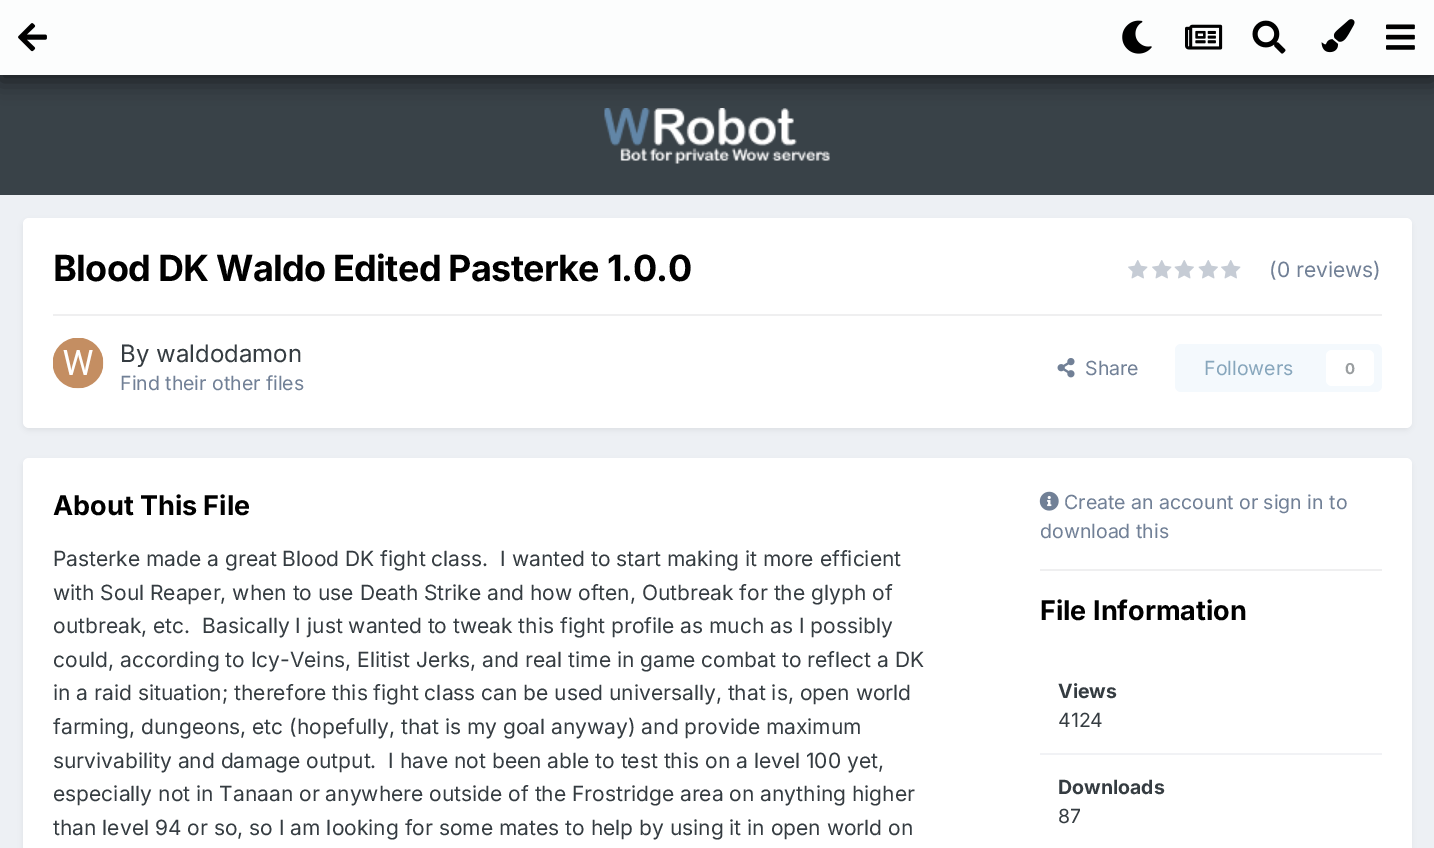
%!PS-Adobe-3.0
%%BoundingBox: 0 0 1434 848
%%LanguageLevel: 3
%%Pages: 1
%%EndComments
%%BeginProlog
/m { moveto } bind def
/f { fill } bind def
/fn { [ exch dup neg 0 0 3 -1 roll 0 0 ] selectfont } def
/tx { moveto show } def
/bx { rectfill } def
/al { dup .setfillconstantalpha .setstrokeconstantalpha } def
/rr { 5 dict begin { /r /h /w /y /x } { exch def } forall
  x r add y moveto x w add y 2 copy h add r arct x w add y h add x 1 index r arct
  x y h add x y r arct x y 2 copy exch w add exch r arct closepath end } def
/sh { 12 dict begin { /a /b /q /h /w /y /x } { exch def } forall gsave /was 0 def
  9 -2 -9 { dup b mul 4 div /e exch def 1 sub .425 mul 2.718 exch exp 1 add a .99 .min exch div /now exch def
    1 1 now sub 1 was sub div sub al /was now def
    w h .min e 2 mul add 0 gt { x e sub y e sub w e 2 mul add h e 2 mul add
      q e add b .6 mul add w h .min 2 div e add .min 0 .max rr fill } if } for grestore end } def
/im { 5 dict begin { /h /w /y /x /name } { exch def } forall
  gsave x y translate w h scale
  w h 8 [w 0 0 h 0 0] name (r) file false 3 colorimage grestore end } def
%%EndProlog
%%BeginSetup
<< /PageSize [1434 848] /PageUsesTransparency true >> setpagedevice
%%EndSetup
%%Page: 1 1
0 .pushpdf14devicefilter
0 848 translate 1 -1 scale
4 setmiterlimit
0.929 0.941 0.957 setrgbcolor
0 0 1434 848 bx
0.224 0.259 0.282 setrgbcolor
0 75 1434 120 bx
(image6.raw) 604 108 226 56 im
0 setgray
0 6 1434 75 0 11 0.53 sh
0.988 0.992 0.992 setrgbcolor
0 0 1434 75 bx
(image0.raw) 18 23 29 29 im
(image1.raw) 1122 20 30 34 im
(image2.raw) 1185 24 38 26 im
(image3.raw) 1252 20 34 34 im
(image4.raw) 1321 19 34 34 im
(image5.raw) 1386 24 29 26 im
0.114 setgray
24 222 1386 207 5 3 0.1 sh
1 setgray
23 218 1389 210 6 rr f
/Inter-Bold 36 fn
0 setgray
53 281 m -0.7 0 (Blood DK Waldo Edited Pasterke 1.0.0) ashow
(image7.raw) 1128 260 20 19 im
(image7.raw) 1152 260 20 19 im
(image8.raw) 1174 260 20 19 im
(image8.raw) 1198 260 20 19 im
(image7.raw) 1221 260 20 19 im
/Inter-Regular 21 fn
0.443 0.502 0.588 setrgbcolor
(\(0 reviews\)) 1269 277 tx
0.937 0.937 0.941 setrgbcolor
53 314 1329 2 bx
(image9.raw) 53 338 51 51 im
/Inter-Regular 24 fn
0.208 0.235 0.255 setrgbcolor
(By waldodamon) 120 362 tx
/Inter-Regular 19.5 fn
0.443 0.502 0.588 setrgbcolor
(Find their other files) 120 390 tx
(image10.raw) 1057 358 18 20 im
(Share) 1085 375 tx
0.957 0.976 0.992 setrgbcolor
1175 344 207 48 6 rr f
0.529 0.651 0.737 setrgbcolor
(Followers) 1204 375 tx
1 setgray
1326 350 48 36 6 rr f
/Inter-Bold 15 fn
0.604 0.62 0.627 setrgbcolor
(0) 1345 374 tx
0.114 setgray
24 462 1386 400 5 3 0.1 sh
1 setgray
23 458 1389 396 6 rr f
/Inter-Bold 27 fn
0 setgray
(About This File) 53 515 tx
/Inter-Regular 21 fn
0.208 0.235 0.255 setrgbcolor
(Pasterke made a great Blood DK fight class.  I wanted to start making it more efficient) 53 566 tx
(with Soul Reaper, when to use Death Strike and how often, Outbreak for the glyph of) 53 600 tx
(outbreak, etc.  Basically I just wanted to tweak this fight profile as much as I possibly) 53 633 tx
(could, according to Icy-Veins, Elitist Jerks, and real time in game combat to reflect a DK) 53 667 tx
(in a raid situation; therefore this fight class can be used universally, that is, open world) 53 700 tx
(farming, dungeons, etc \(hopefully, that is my goal anyway\) and provide maximum) 53 734 tx
(survivability and damage output.  I have not been able to test this on a level 100 yet,) 53 768 tx
(especially not in Tanaan or anywhere outside of the Frostridge area on anything higher) 53 801 tx
(than level 94 or so, so I am looking for some mates to help by using it in open world on) 53 835 tx
(image11.raw) 1039 491 20 20 im
/Inter-Regular 19.5 fn
0.443 0.502 0.588 setrgbcolor
(Create an account or sign in to) 1064 509 tx
(download this) 1040 538 tx
0.937 0.937 0.941 setrgbcolor
1040 569 342 2 bx
/Inter-Bold 27 fn
0 setgray
(File Information) 1040 620 tx
0.945 0.949 0.961 setrgbcolor
1040 753 342 2 bx
/Inter-Bold 19.5 fn
0.208 0.235 0.255 setrgbcolor
(Views) 1058 698 tx
/Inter-Regular 19.5 fn
(4124) 1058 727 tx
/Inter-Bold 19.5 fn
(Downloads) 1058 794 tx
/Inter-Regular 19.5 fn
(87) 1058 823 tx
.poppdf14devicefilter showpage
%%EOF
